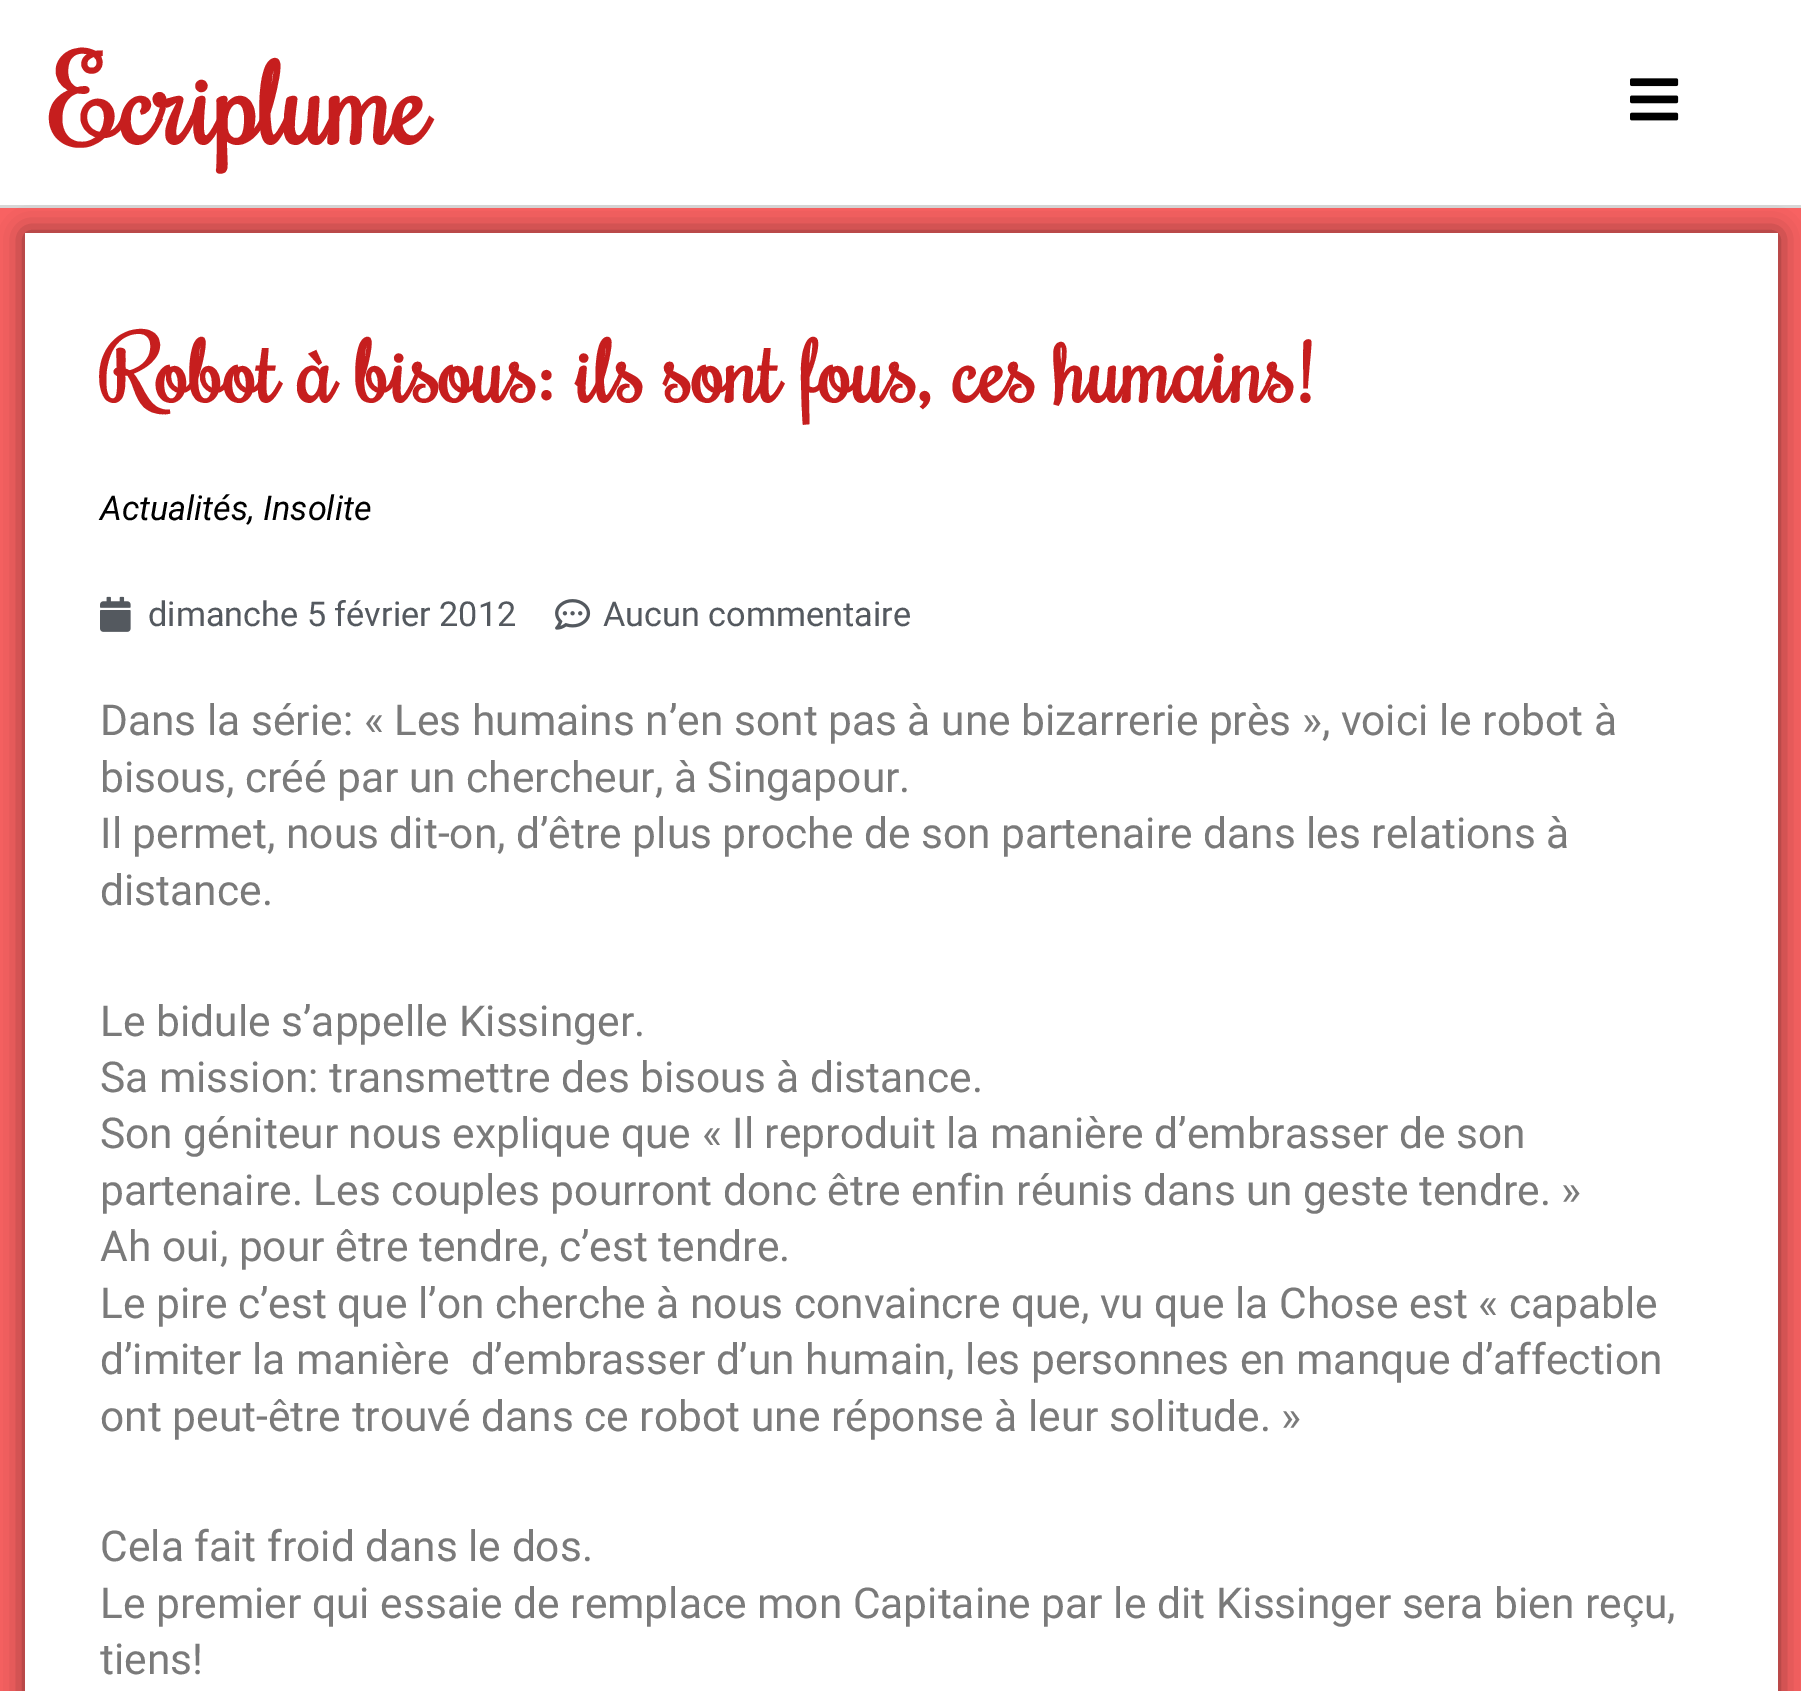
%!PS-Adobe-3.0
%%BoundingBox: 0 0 1801 1691
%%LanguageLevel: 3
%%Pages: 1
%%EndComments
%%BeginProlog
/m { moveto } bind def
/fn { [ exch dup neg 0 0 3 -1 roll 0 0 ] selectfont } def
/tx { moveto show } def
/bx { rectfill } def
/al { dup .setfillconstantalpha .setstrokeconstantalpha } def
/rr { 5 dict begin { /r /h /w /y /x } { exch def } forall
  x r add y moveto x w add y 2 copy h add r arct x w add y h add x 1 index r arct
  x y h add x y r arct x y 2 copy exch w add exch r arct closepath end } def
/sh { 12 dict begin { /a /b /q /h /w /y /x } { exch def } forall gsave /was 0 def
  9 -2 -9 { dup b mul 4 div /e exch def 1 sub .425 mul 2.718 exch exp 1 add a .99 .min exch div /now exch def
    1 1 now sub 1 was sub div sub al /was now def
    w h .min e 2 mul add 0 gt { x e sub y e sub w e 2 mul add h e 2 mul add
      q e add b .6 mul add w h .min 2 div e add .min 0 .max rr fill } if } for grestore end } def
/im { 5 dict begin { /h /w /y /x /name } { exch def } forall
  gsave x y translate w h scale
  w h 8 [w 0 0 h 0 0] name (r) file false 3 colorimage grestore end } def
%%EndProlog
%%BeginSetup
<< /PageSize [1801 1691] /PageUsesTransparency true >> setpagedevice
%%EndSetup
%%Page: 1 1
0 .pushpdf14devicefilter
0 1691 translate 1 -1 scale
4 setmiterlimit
1 setgray
0 0 1801 1691 bx
0.843 setgray
0 205 1801 3 bx
/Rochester-Bold 115 fn
0.776 0.118 0.118 setrgbcolor
50 145 m -0.5 0 (Ecriplume) ashow
(image0.raw) 1630 78 49 43 im
0.973 0.384 0.384 setrgbcolor
0 208 1801 1483 bx
0 setgray
25 233 1753 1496 0 12.5 0.5 sh
1 setgray
25 233 1753 1458 bx
/Rochester-Bold 87.5 fn
0.776 0.118 0.118 setrgbcolor
(Robot à bisous: ils sont fous, ces humains!) 100 403 tx
/Roboto-Italic 34.25 fn
0 setgray
(Actualités, Insolite) 100 520 tx
(image1.raw) 100 596 31 36 im
/Roboto-Regular 34.25 fn
0.329 0.349 0.373 setrgbcolor
(dimanche 5 février 2012) 148 626 tx
(image2.raw) 555 599 36 31 im
(Aucun commentaire) 603 626 tx
/Roboto-Regular 42.5 fn
0.478 setgray
(Dans la série: « Les humains n’en sont pas à une bizarrerie près », voici le robot à) 100 735 tx
(bisous, créé par un chercheur, à Singapour.) 100 792 tx
(Il permet, nous dit-on, d’être plus proche de son partenaire dans les relations à) 100 848 tx
(distance.) 100 905 tx
(Le bidule s’appelle Kissinger.) 100 1036 tx
(Sa mission: transmettre des bisous à distance.) 100 1092 tx
(Son géniteur nous explique que « Il reproduit la manière d’embrasser de son) 100 1148 tx
(partenaire. Les couples pourront donc être enfin réunis dans un geste tendre. ») 100 1205 tx
(Ah oui, pour être tendre, c’est tendre.) 100 1261 tx
(Le pire c’est que l’on cherche à nous convaincre que, vu que la Chose est « capable) 100 1318 tx
(d’imiter la manière  d’embrasser d’un humain, les personnes en manque d’affection) 100 1374 tx
(ont peut-être trouvé dans ce robot une réponse à leur solitude. ») 100 1431 tx
(Cela fait froid dans le dos.) 100 1561 tx
(Le premier qui essaie de remplace mon Capitaine par le dit Kissinger sera bien reçu,) 100 1618 tx
(tiens!) 100 1674 tx
.poppdf14devicefilter showpage
%%EOF
